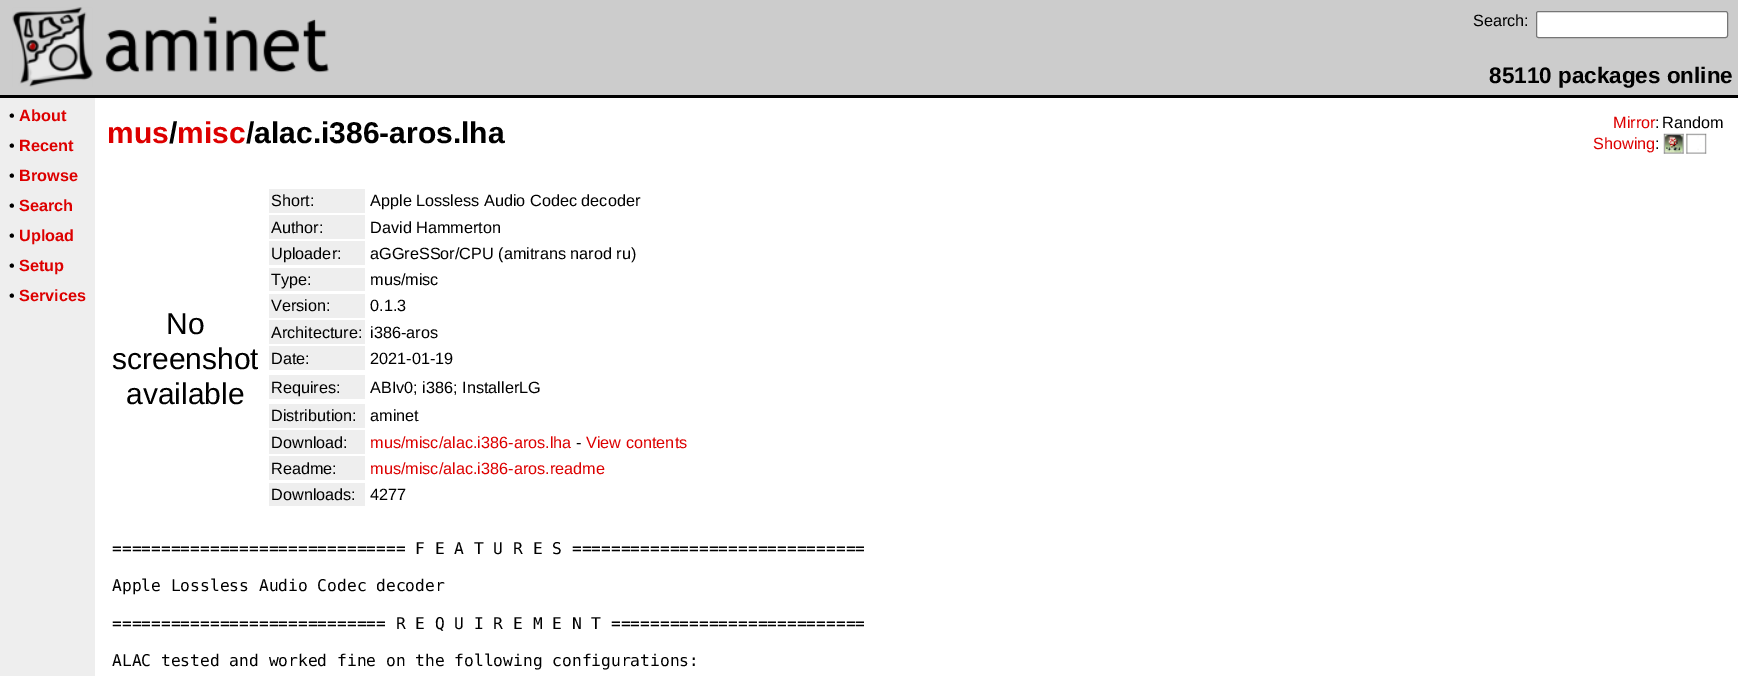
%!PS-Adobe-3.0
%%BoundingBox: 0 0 1738 676
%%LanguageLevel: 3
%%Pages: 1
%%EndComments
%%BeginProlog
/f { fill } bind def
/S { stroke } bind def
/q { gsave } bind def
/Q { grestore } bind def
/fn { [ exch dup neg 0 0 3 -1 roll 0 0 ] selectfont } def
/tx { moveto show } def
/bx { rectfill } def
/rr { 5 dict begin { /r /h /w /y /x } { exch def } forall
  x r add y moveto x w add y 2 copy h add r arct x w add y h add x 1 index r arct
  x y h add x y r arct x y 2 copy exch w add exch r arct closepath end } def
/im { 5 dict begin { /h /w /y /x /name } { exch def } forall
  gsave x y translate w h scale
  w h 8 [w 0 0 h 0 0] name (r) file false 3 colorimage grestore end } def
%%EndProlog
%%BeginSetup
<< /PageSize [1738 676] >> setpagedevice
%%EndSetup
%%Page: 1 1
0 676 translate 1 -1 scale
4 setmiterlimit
1 setgray
0 0 1738 676 bx
0.8 setgray
0 0 1738 95 bx
(image0.raw) 12 7 81 80 im
(image1.raw) 105 16 224 57 im
/LiberationSans-Regular 16.25 fn
0 setgray
(Search:) 1473 26 tx
1 setgray
1536.5 11.5 191 26 2 rr q f Q
0.463 setgray
S
/LiberationSans-Bold 22.5 fn
0 setgray
(85110 packages online) 1489 83 tx
0 95 1738 3 bx
0.933 setgray
0 98 95 578 bx
/LiberationSans-Regular 16.25 fn
0 setgray
(•) 9 121 tx
/LiberationSans-Bold 16.25 fn
0.867 0 0 setrgbcolor
(About) 19 121 tx
/LiberationSans-Regular 16.25 fn
0 setgray
(•) 9 151 tx
/LiberationSans-Bold 16.25 fn
0.867 0 0 setrgbcolor
(Recent) 19 151 tx
/LiberationSans-Regular 16.25 fn
0 setgray
(•) 9 181 tx
/LiberationSans-Bold 16.25 fn
0.867 0 0 setrgbcolor
(Browse) 19 181 tx
/LiberationSans-Regular 16.25 fn
0 setgray
(•) 9 211 tx
/LiberationSans-Bold 16.25 fn
0.867 0 0 setrgbcolor
(Search) 19 211 tx
/LiberationSans-Regular 16.25 fn
0 setgray
(•) 9 241 tx
/LiberationSans-Bold 16.25 fn
0.867 0 0 setrgbcolor
(Upload) 19 241 tx
/LiberationSans-Regular 16.25 fn
0 setgray
(•) 9 271 tx
/LiberationSans-Bold 16.25 fn
0.867 0 0 setrgbcolor
(Setup) 19 271 tx
/LiberationSans-Regular 16.25 fn
0 setgray
(•) 9 301 tx
/LiberationSans-Bold 16.25 fn
0.867 0 0 setrgbcolor
(Services) 19 301 tx
/LiberationSans-Bold 30 fn
(mus misc) 107 143 tx
0 setgray
(/) 169 143 tx
(/alac.i386-aros.lha) 246 143 tx
/LiberationSans-Regular 16.25 fn
0.867 0 0 setrgbcolor
(Mirror) 1613 128 tx
0 setgray
(:) 1655 128 tx
(Random) 1662 128 tx
0.867 0 0 setrgbcolor
(Showing) 1593 149 tx
0 setgray
(:) 1655 149 tx
(image2.raw) 1663 133 21 21 im
(image3.raw) 1686 133 21 21 im
/LiberationSans-Regular 30 fn
(No) 166 334 tx
(screenshot) 112 369 tx
(available) 126 404 tx
0.933 setgray
269 189 96 24 bx
/LiberationSans-Regular 16.25 fn
0 setgray
(Short:) 271 206 tx
(Apple Lossless Audio Codec decoder) 370 206 tx
0.933 setgray
269 215 96 24 bx
0 setgray
(Author:) 271 233 tx
(David Hammerton) 370 233 tx
0.933 setgray
269 241 96 24 bx
0 setgray
(Uploader:) 271 259 tx
(aGGreSSor/CPU \(amitrans narod ru\)) 370 259 tx
0.933 setgray
269 268 96 23 bx
0 setgray
(Type:) 271 285 tx
(mus/misc) 370 285 tx
0.933 setgray
269 294 96 24 bx
0 setgray
(Version:) 271 311 tx
(0.1.3) 370 311 tx
0.933 setgray
269 320 96 24 bx
0 setgray
(Architecture:) 271 338 tx
(i386-aros) 370 338 tx
0.933 setgray
269 346 96 24 bx
0 setgray
(Date:) 271 364 tx
(2021-01-19) 370 364 tx
0.933 setgray
269 375 96 24 bx
0 setgray
(Requires:) 271 393 tx
(ABIv0; i386; InstallerLG) 370 393 tx
0.933 setgray
269 404 96 24 bx
0 setgray
(Distribution:) 271 421 tx
(aminet) 370 421 tx
0.933 setgray
269 430 96 24 bx
0 setgray
(Download:) 271 448 tx
0.867 0 0 setrgbcolor
(mus/misc/alac.i386-aros.lha) 370 448 tx
0 setgray
(-) 576 448 tx
0.867 0 0 setrgbcolor
(View contents) 586 448 tx
0.933 setgray
269 456 96 24 bx
0 setgray
(Readme:) 271 474 tx
0.867 0 0 setrgbcolor
(mus/misc/alac.i386-aros.readme) 370 474 tx
0.933 setgray
269 483 96 23 bx
0 setgray
(Downloads:) 271 500 tx
(4277) 370 500 tx
/DejaVuSansMono-Regular 16.25 fn
(============================== F E A T U R E S ==============================) 112 554 tx
(Apple Lossless Audio Codec decoder) 112 591 tx
(============================ R E Q U I R E M E N T ==========================) 112 629 tx
(ALAC tested and worked fine on the following configurations:) 112 666 tx
showpage
%%EOF
